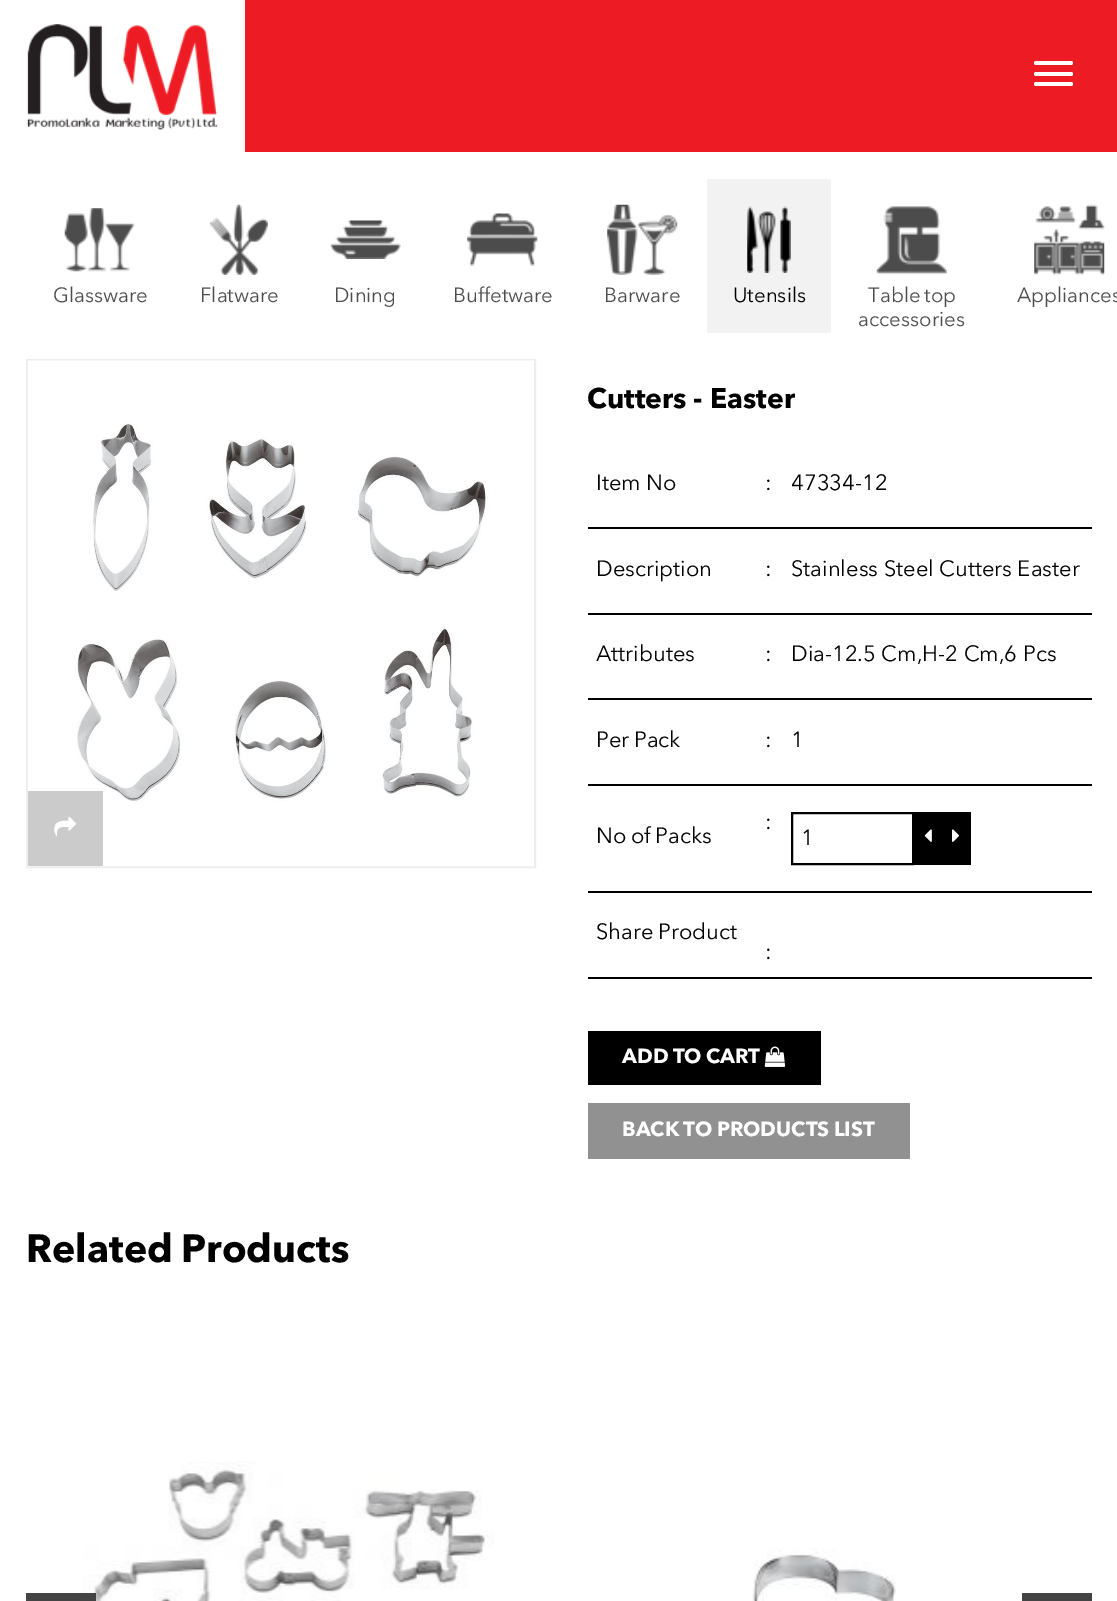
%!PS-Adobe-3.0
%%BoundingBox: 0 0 1117 1601
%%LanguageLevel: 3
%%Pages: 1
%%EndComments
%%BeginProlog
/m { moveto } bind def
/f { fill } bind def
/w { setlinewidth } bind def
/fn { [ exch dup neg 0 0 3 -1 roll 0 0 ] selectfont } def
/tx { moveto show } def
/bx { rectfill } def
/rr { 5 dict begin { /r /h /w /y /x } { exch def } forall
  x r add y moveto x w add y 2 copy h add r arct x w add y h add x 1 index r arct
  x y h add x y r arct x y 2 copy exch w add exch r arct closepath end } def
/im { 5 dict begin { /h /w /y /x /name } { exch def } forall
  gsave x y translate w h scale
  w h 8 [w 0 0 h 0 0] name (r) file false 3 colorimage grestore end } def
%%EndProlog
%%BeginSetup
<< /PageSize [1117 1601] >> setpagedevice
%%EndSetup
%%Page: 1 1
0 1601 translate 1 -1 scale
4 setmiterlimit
1 setgray
0 0 1117 1601 bx
0.929 0.11 0.141 setrgbcolor
245 0 872 152 bx
(image0.raw) 0 0 245 152 im
1 setgray
1034 61 39 4 2 rr f
1034 72 39 4 2 rr f
1034 82 39 4 2 rr f
(image1.raw) 64 208 71 64 im
/AvenirNext-Regular 20.4 fn
0.302 setgray
(Glassware) 53 302 tx
(image2.raw) 210 204 58 71 im
(Flatware) 200 302 tx
(image3.raw) 330 220 71 39 im
(Dining) 334 302 tx
(image4.raw) 467 213 71 53 im
(Buffetware) 453 302 tx
(image5.raw) 607 204 71 71 im
(Barware) 604 302 tx
0.949 setgray
707 179 124 154 bx
(image6.raw) 747 206 44 67 im
0 setgray
(Utensils) 733 302 tx
(image7.raw) 876 206 71 68 im
0.302 setgray
868 302 m -1 0 32 (Table top) widthshow
(accessories) 858 326 tx
(image8.raw) 1034 204 71 71 im
(Appliances) 1017 302 tx
0.933 setgray
2 w
27 360 508 507 rectstroke
(image9.raw) 28 360 506 507 im
0.796 setgray
28 791 75 75 bx
(image10.raw) 54 816 23 21 im
/AvenirNext-Bold 28.25 fn
0 setgray
(Cutters - Easter) 587 408 tx
588 527 504 2 bx
/AvenirNext-Regular 22 fn
(Item No) 596 490 tx
(:) 765 490 tx
(47334-12) 791 490 tx
588 613 504 2 bx
(Description) 596 576 tx
(:) 765 576 tx
(Stainless Steel Cutters Easter) 791 576 tx
588 698 504 2 bx
(Attributes) 596 661 tx
(:) 765 661 tx
(Dia-12.5 Cm,H-2 Cm,6 Pcs) 791 661 tx
588 784 504 2 bx
596 747 m -1 0 32 (Per Pack) widthshow
(:) 765 747 tx
(1) 791 747 tx
588 891 504 2 bx
596 843 m -1 0 32 (No of Packs) widthshow
(:) 765 829 tx
914 812 57 53 bx
(image11.raw) 924 829 8 13 im
792 813 121 51 rectstroke
(1) 801 845 tx
(image12.raw) 952 829 7 13 im
588 977 504 2 bx
596 939 m -1 0 32 (Share Product) widthshow
(:) 765 959 tx
588 1031 233 54 bx
/AvenirNext-Bold 20.4 fn
1 setgray
622 1063 m -1 0 32 (ADD TO CART) widthshow
(image13.raw) 764 1046 22 21 im
0.569 setgray
588 1103 322 56 bx
1 setgray
622 1136 m -1 0 32 (BACK TO PRODUCTS LIST) widthshow
/AvenirNext-Bold 39.25 fn
0 setgray
26 1262 m -2 0 32 (Related Products) widthshow
(image14.raw) 83 1461 411 140 im
(image15.raw) 752 1548 144 53 im
0.267 setgray
26 1593 70 8 bx
1022 1593 70 8 bx
showpage
%%EOF
